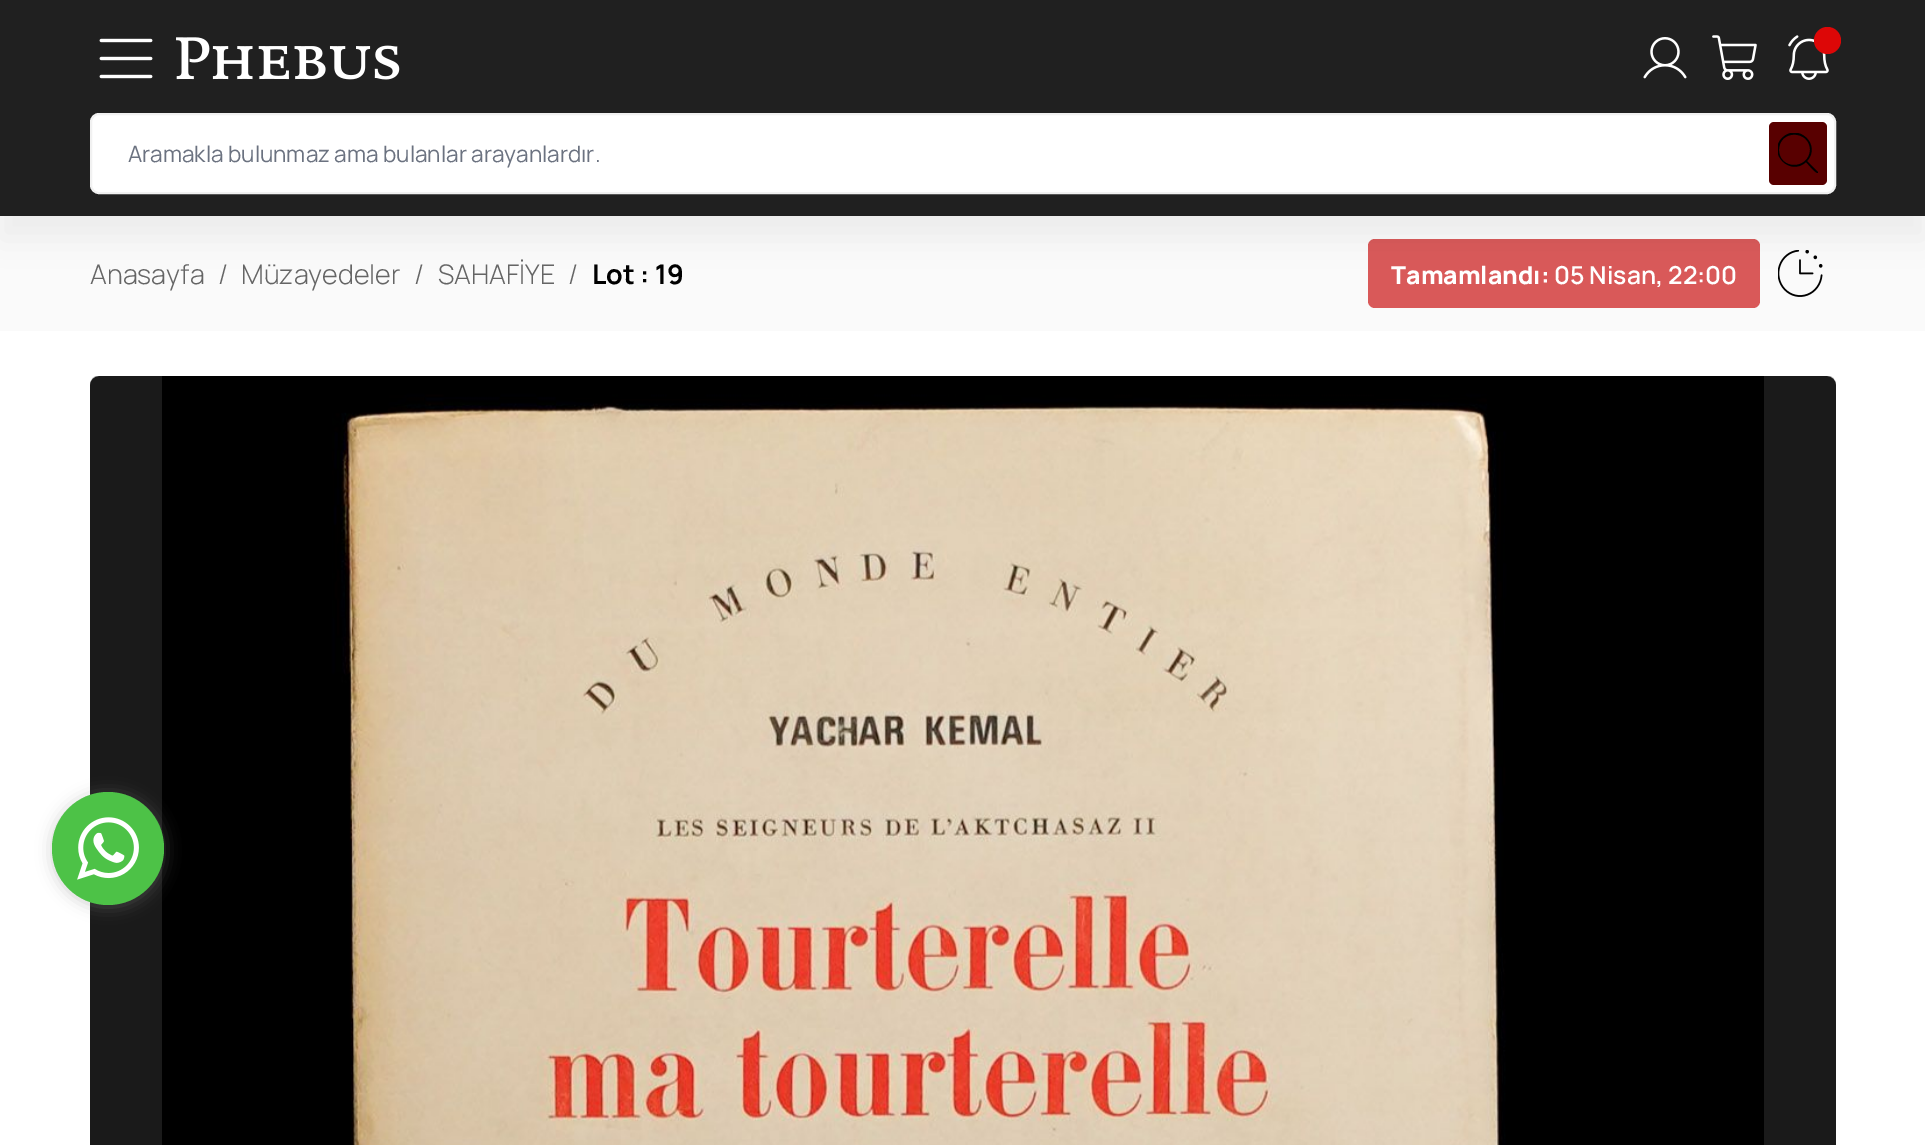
%!PS-Adobe-3.0
%%BoundingBox: 0 0 1925 1145
%%LanguageLevel: 3
%%Pages: 1
%%EndComments
%%BeginProlog
/m { moveto } bind def
/l { lineto } bind def
/c { curveto } bind def
/h { closepath } bind def
/f { fill } bind def
/S { stroke } bind def
/q { gsave } bind def
/Q { grestore } bind def
/w { setlinewidth } bind def
/fn { [ exch dup neg 0 0 3 -1 roll 0 0 ] selectfont } def
/tx { moveto show } def
/bx { rectfill } def
/al { dup .setfillconstantalpha .setstrokeconstantalpha } def
/ci { newpath 0 360 arc closepath } def
/rr { 5 dict begin { /r /h /w /y /x } { exch def } forall
  x r add y moveto x w add y 2 copy h add r arct x w add y h add x 1 index r arct
  x y h add x y r arct x y 2 copy exch w add exch r arct closepath end } def
/sh { 12 dict begin { /a /b /q /h /w /y /x } { exch def } forall gsave /was 0 def
  9 -2 -9 { dup b mul 4 div /e exch def 1 sub .425 mul 2.718 exch exp 1 add a .99 .min exch div /now exch def
    1 1 now sub 1 was sub div sub al /was now def
    w h .min e 2 mul add 0 gt { x e sub y e sub w e 2 mul add h e 2 mul add
      q e add b .6 mul add w h .min 2 div e add .min 0 .max rr fill } if } for grestore end } def
/im { 5 dict begin { /h /w /y /x /name } { exch def } forall
  gsave x y translate w h scale
  w h 8 [w 0 0 h 0 0] name (r) file false 3 colorimage grestore end } def
%%EndProlog
%%BeginSetup
<< /PageSize [1925 1145] /PageUsesTransparency true >> setpagedevice
%%EndSetup
%%Page: 1 1
0 .pushpdf14devicefilter
0 1145 translate 1 -1 scale
4 setmiterlimit
1 setgray
0 0 1925 1145 bx
0.98 setgray
0 216 1925 115 bx
0.851 0.349 0.349 setrgbcolor
1368 239 392 69 7 rr f
(image5.raw) 1778 250 45 47 im
0 setgray
0 23 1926 216 0 17 0.05 sh
0.125 setgray
0 0 1925 216 bx
(image0.raw) 99 38 54 41 im
(image1.raw) 176 37 224 43 im
(image2.raw) 1643 37 44 42 im
(image3.raw) 1712 35 45 45 im
(image4.raw) 1788 35 41 45 im
0.867 0.027 0.027 setrgbcolor
1827.5 40.5 13.5 ci f
1 setgray
91 114 1744 79 8 rr q f Q
0.945 setgray
2 w
S
/Manrope-Regular 22.5 fn
0.42 0.447 0.502 setrgbcolor
(Aramakla bulunmaz ama bulanlar arayanlardır.) 128 162 tx
0.345 0 0 setrgbcolor
1769 122 58 63 5 rr f
q
1778 133 40 40 rectclip
0 setgray
1818 172 m 1807 161 l 1822 145 1798 122 1782 138 c 1767 153 1790 177 1806 162 c 1808 164 1816 174 1818 173 c h 1779 150 m 1779 129 1810 130 1810 150 c 1809 170 1779 170 1779 150 c h f
Q
/Manrope-Light 27 fn
0.396 setgray
(Anasayfa) 90 284 tx
(/) 218 284 tx
(Müzayedeler) 241 284 tx
(/) 414 284 tx
(SAHAFİYE) 438 284 tx
(/) 568 284 tx
/Manrope-Bold 27 fn
0 setgray
(Lot : 19) 592 284 tx
/Manrope-ExtraBold 24.75 fn
1 setgray
(Tamamlandı:) 1391 284 tx
/Manrope-SemiBold 24.75 fn
(05 Nisan, 22:00) 1554 284 tx
(image6.raw) 90 376 1746 769 im
0.1 al
90 376 72 769 bx
1764 376 72 769 bx
1 al
0.533 setgray
52 794 112 113 56 8 0.4 sh
0.302 0.761 0.278 setrgbcolor
52 792 112 113 56 rr f
(image7.raw) 77 817 62 63 im
.poppdf14devicefilter showpage
%%EOF
